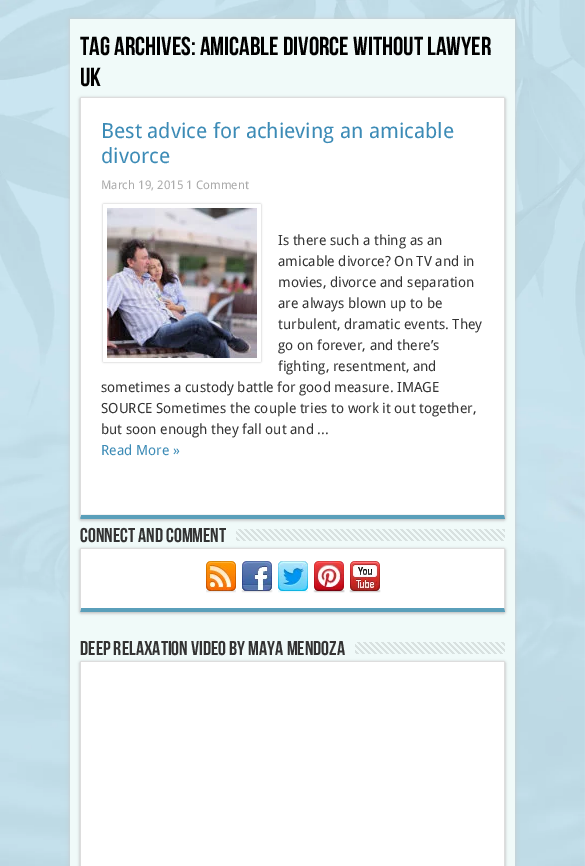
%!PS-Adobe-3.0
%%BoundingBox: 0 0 585 866
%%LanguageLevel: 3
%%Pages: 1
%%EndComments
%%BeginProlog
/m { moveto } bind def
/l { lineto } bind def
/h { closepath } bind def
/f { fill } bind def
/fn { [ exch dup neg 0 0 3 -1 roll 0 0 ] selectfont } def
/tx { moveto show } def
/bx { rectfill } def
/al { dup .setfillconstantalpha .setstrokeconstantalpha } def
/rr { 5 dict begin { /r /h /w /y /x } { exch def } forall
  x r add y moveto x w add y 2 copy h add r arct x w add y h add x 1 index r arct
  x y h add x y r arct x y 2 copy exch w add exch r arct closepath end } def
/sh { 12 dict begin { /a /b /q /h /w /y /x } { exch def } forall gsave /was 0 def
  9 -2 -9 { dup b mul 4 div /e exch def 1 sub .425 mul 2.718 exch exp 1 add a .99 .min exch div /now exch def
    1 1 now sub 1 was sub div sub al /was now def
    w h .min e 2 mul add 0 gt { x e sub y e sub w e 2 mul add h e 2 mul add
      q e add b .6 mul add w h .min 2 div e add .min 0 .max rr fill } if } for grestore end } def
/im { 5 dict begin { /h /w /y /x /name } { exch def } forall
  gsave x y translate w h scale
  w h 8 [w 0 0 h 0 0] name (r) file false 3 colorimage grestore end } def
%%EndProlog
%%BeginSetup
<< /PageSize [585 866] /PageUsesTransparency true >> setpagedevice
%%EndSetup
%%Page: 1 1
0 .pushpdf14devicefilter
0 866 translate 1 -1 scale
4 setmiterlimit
1 setgray
0 0 585 866 bx
(image0.raw) 584 0 1 866 im
(image1.raw) 0 0 585 866 im
0.792 setgray
70 19 445 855 0 2.5 1 sh
0.941 0.98 0.976 setrgbcolor
70 19 445 847 bx
/BebasNeue-Regular 26 fn
0 setgray
(Tag Archives: Amicable Divorce Without Lawyer) 80 55 tx
(Uk) 80 86 tx
0.71 setgray
80 98 425 422 1 1.5 1 sh
1 setgray
81 98 423 416 bx
0.867 setgray
81 97 m 80 98 l 81 98 l 504 98 l 504 97 l h f
505 518 m 504 515 l 504 98 l 505 98 l h f
0.353 0.624 0.729 setrgbcolor
81 519 m 80 518 l 81 515 l 504 515 l 505 519 l 504 519 l h f
0.867 setgray
81 98 m 80 98 l 80 518 l 81 515 l h f
0.949 setgray
81 514 423 1 bx
/DroidSans-Regular 21 fn
0.235 0.545 0.714 setrgbcolor
(Best advice for achieving an amicable) 101 138 tx
(divorce) 101 163 tx
/DroidSans-Regular 11.9 fn
0.667 setgray
(March 19, 2015 1 Comment) 101 189 tx
0.71 setgray
103 204 158 158 1 1 1 sh
1 setgray
103 204 158 158 1 rr f
(image2.raw) 107 208 150 150 im
/DroidSans-Regular 14 fn
0.2 setgray
(Is there such a thing as an) 278 245 tx
(amicable divorce? On TV and in) 278 266 tx
(movies, divorce and separation) 278 287 tx
(are always blown up to be) 278 308 tx
(turbulent, dramatic events. They) 278 329 tx
(go on forever, and there’s) 278 350 tx
(fighting, resentment, and) 278 371 tx
(sometimes a custody battle for good measure. IMAGE) 101 392 tx
(SOURCE Sometimes the couple tries to work it out together,) 101 413 tx
(but soon enough they fall out and ...) 101 434 tx
0.235 0.545 0.714 setrgbcolor
(Read More ») 101 455 tx
/BebasNeue-Regular 20 fn
0.2 setgray
(Connect And Comment) 80 542 tx
(image3.raw) 236 529 269 12 im
0.71 setgray
80 549 425 64 1 1.5 1 sh
1 setgray
81 549 423 59 bx
0.867 setgray
81 548 m 80 548 l 81 549 l 504 549 l 505 548 l 504 548 l h f
505 611 m 505 548 l 504 549 l 504 608 l 505 612 l h f
0.353 0.624 0.729 setrgbcolor
81 612 m 505 612 l 504 608 l 81 608 l 80 612 l h f
0.867 setgray
81 549 m 80 548 l 80 612 l 81 608 l h f
(image4.raw) 206 561 30 32 im
(image5.raw) 241 561 32 32 im
(image6.raw) 278 561 30 32 im
(image7.raw) 313 561 32 32 im
(image8.raw) 349 561 32 32 im
0.2 setgray
(Deep Relaxation Video By Maya Mendoza) 80 655 tx
(image9.raw) 355 642 150 12 im
0.71 setgray
80 662 425 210 1 1.5 1 sh
1 setgray
81 662 423 204 bx
0.867 setgray
81 661 m 80 661 l 81 662 l 504 662 l 505 661 l 504 661 l h f
505 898 m 505 661 l 504 662 l 504 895 l 505 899 l h f
81 662 m 80 661 l 80 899 l 81 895 l h f
.poppdf14devicefilter showpage
%%EOF
